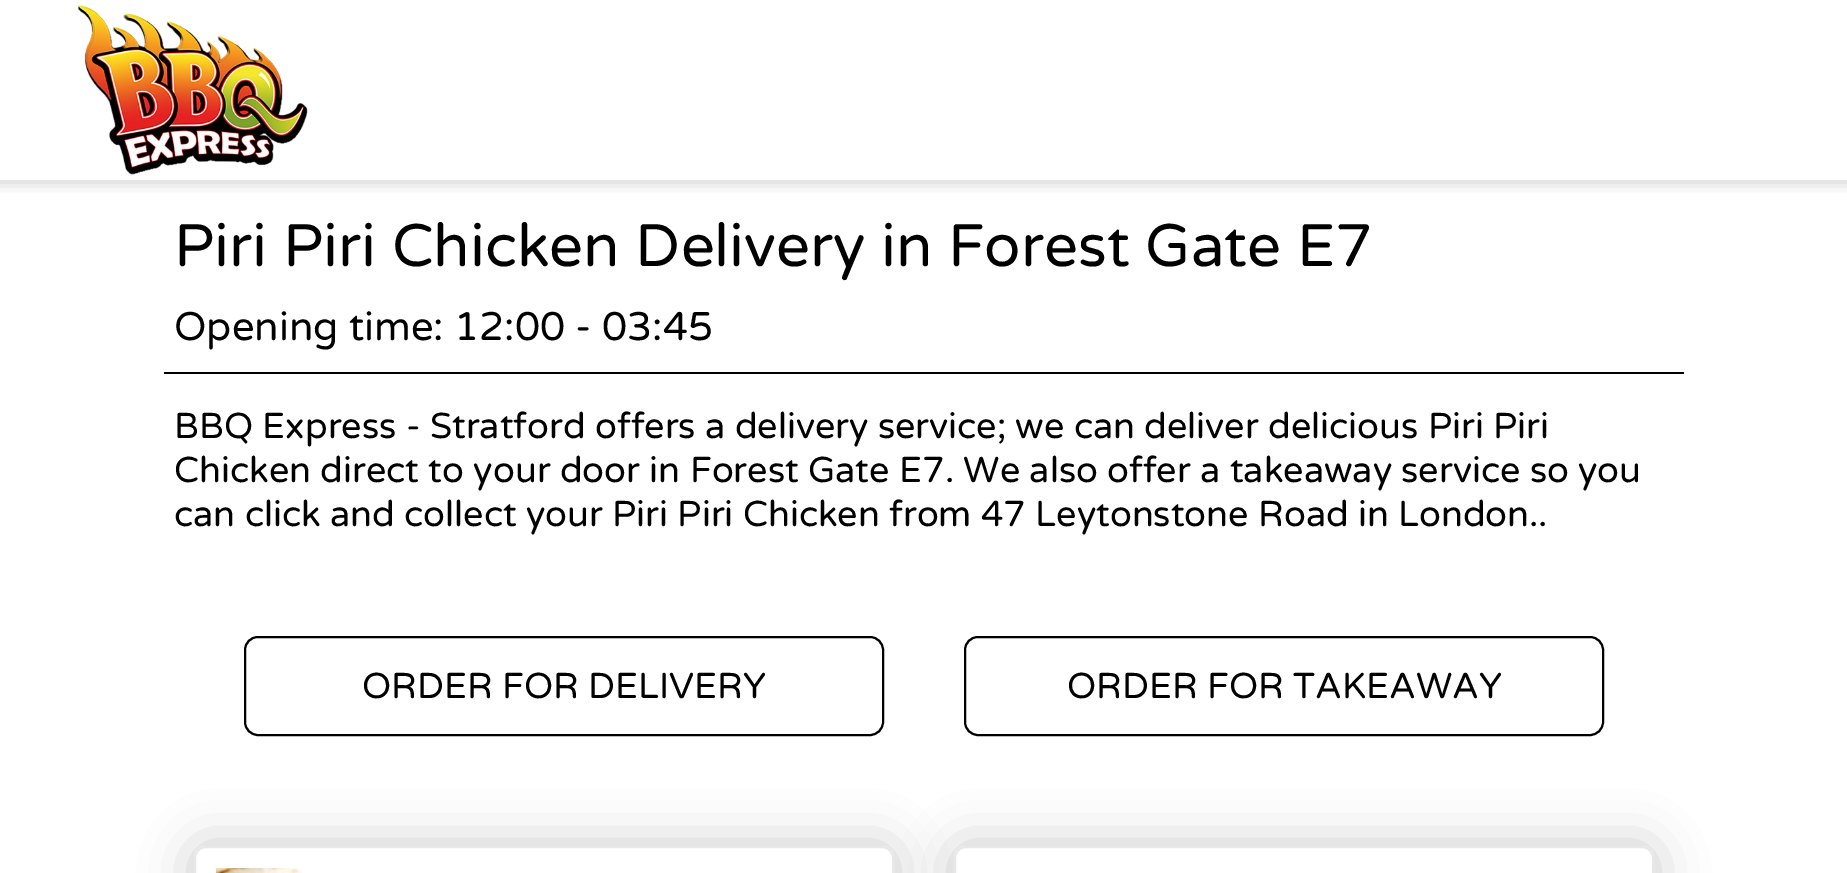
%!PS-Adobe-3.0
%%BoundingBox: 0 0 1847 873
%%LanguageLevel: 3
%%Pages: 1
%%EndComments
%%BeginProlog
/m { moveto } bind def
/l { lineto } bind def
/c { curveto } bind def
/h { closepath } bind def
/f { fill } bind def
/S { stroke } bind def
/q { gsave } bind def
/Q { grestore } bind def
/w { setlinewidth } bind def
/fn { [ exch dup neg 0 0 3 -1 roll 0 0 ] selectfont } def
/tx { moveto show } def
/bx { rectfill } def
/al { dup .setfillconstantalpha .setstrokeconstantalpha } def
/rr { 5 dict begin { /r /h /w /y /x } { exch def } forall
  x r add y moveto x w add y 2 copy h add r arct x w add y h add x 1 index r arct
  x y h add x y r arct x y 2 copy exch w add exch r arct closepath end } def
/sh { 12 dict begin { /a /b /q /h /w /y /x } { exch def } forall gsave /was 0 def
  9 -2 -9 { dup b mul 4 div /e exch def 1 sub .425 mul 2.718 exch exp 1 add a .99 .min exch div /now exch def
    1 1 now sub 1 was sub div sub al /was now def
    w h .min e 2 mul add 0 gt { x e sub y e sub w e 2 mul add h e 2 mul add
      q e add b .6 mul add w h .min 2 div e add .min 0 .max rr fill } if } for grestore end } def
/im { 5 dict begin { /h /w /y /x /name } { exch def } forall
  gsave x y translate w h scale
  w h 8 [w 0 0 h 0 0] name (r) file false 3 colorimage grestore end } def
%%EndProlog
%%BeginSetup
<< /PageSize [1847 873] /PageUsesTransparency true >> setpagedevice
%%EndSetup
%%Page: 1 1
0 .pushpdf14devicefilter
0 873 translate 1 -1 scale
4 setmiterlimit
1 setgray
0 0 1847 873 bx
q
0 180 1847 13 rectclip
0.208 setgray
-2 -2 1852 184 0 8 0.25 sh
Q
(image0.raw) 78 5 230 170 im
/VarelaRound-Regular 60 fn
0 setgray
(Piri Piri Chicken Delivery in Forest Gate E7) 174 266 tx
164 372 1520 2 bx
/VarelaRound-Regular 40 fn
(Opening time: 12:00 - 03:45) 174 340 tx
/VarelaRound-Regular 36 fn
(BBQ Express - Stratford offers a delivery service; we can deliver delicious Piri Piri) 174 438 tx
(Chicken direct to your door in Forest Gate E7. We also offer a takeaway service so you) 174 482 tx
(can click and collect your Piri Piri Chicken from 47 Leytonstone Road in London..) 174 526 tx
2 w
245 637 638 98 13 rr S
(ORDER FOR DELIVERY) 362 698 tx
965 637 638 98 13 rr S
(ORDER FOR TAKEAWAY) 1067 698 tx
0.208 setgray
192 844 704 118 14 25 0.25 sh
1 setgray
206 846 m 882 846 l 888.5 846 894 851.5 894 858 c 894 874 l 194 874 l 194 858 l 194 851.5 199.5 846 206 846 c h f
0.91 setgray
195 847 698 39 11 rr S
(image1.raw) 216 868 86 5 im
0.208 setgray
952 844 704 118 14 25 0.25 sh
1 setgray
966 846 m 1642 846 l 1648.5 846 1654 851.5 1654 858 c 1654 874 l 954 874 l 954 858 l 954 851.5 959.5 846 966 846 c h f
0.91 setgray
955 847 698 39 11 rr S
.poppdf14devicefilter showpage
%%EOF
